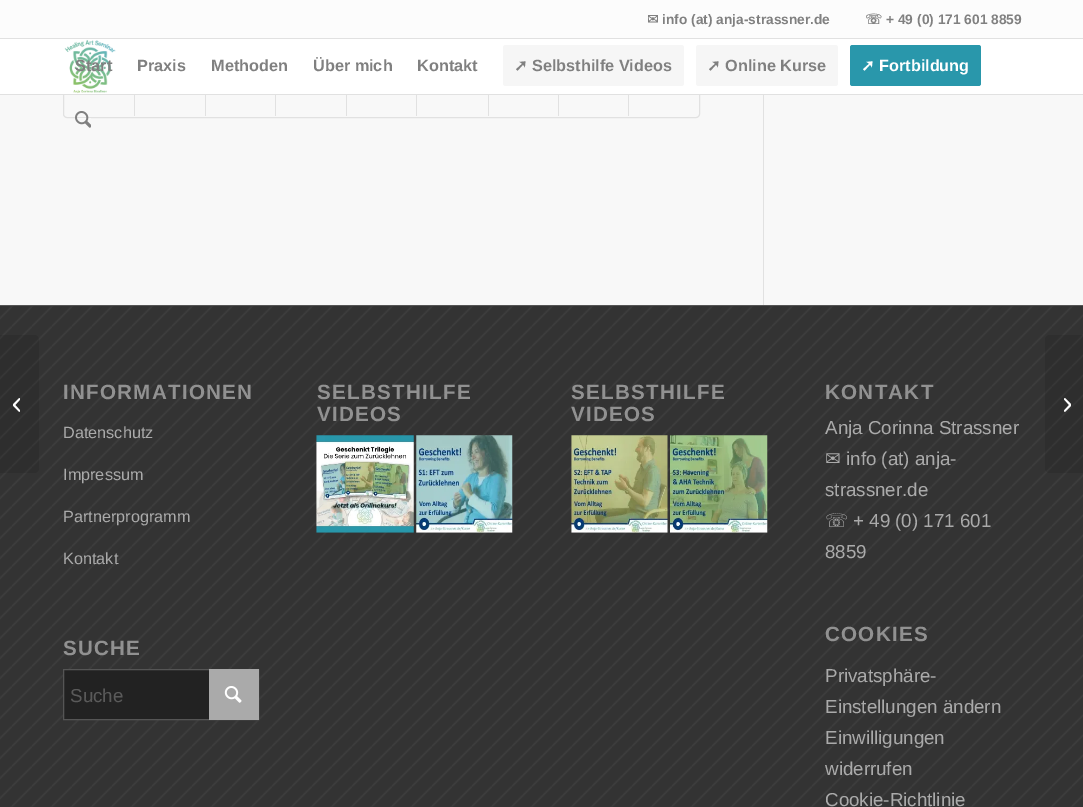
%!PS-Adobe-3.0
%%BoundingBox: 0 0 1083 807
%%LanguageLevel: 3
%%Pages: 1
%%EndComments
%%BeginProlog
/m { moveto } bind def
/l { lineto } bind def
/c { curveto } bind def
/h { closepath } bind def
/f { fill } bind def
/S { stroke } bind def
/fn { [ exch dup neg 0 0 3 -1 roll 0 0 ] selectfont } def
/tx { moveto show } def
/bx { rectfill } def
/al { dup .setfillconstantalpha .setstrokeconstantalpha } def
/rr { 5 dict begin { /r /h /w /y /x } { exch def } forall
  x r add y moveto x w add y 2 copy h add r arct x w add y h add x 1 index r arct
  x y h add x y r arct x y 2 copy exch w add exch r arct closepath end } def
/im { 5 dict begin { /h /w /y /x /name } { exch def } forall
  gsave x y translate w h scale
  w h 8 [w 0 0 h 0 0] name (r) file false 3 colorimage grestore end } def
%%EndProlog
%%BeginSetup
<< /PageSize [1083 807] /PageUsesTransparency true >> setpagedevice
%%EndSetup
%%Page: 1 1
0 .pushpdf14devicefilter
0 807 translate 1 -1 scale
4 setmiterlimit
0.973 setgray
0 0 1083 807 bx
0.988 setgray
0 0 1083 38 bx
0.882 setgray
0 38 1083 1 bx
/DejaVuSans-Bold 13.75 fn
0.502 setgray
(✉) 647 24 tx
/LiberationSans-Bold 13.75 fn
(info \(at\) anja-strassner.de) 662 24 tx
/DejaVuSans-Bold 13.75 fn
(☏) 865 24 tx
/LiberationSans-Bold 13.75 fn
(+ 49 \(0\) 171 601 8859) 886 24 tx
0.882 setgray
63.5 46.5 636 71 3.5 rr S
1 setgray
0 39 1083 55 bx
0.882 setgray
0 94 1083 1 bx
(image0.raw) 63 39 54 55 im
/LiberationSans-Bold 16.25 fn
0.502 setgray
(Start) 75 71 tx
(Praxis) 137 71 tx
(Methoden) 211 71 tx
(Über mich) 313 71 tx
(Kontakt) 417 71 tx
0.965 setgray
503 45 181 41 2.5 rr f
/DejaVuSans-Bold 16.25 fn
0.502 setgray
(➚) 514 71 tx
/LiberationSans-Bold 16.25 fn
(Selbsthilfe Videos) 532 71 tx
0.965 setgray
696 45 142 41 2.5 rr f
/DejaVuSans-Bold 16.25 fn
0.502 setgray
(➚) 707 71 tx
/LiberationSans-Bold 16.25 fn
(Online Kurse) 725 71 tx
0.161 0.592 0.671 setrgbcolor
850 45 131 41 2.5 rr f
/DejaVuSans-Bold 16.25 fn
1 setgray
(➚) 861 71 tx
/LiberationSans-Bold 16.25 fn
(Fortbildung) 879 71 tx
(image1.raw) 75 111 16 17 im
0.2 setgray
0 306 1083 501 bx
(image3.raw) 0 306 1083 501 im
0.1 al
0 setgray
0 335 m 34 335 l 37 335 39 337 39 340 c 39 468 l 39 471 37 473 34 473 c 0 473 l h f
1 al
(image2.raw) 13 398 7 14 im
0.882 setgray
763 95 1 210 bx
134 95 1 21 bx
205 95 1 21 bx
275 95 1 21 bx
346 95 1 21 bx
416 95 1 21 bx
488 95 1 21 bx
558 95 1 21 bx
628 95 1 21 bx
0.333 setgray
0 305 1083 1 bx
/LiberationSans-Bold 20.6 fn
0.569 setgray
63 399 m 1.25 0 (INFORMATIONEN) ashow
/LiberationSans-Regular 16.25 fn
0.667 setgray
(Datenschutz) 63 438 tx
(Impressum) 63 480 tx
(Partnerprogramm) 63 522 tx
(Kontakt) 63 564 tx
/LiberationSans-Bold 20.6 fn
0.569 setgray
63 655 m 1.25 0 (SUCHE) ashow
0.133 setgray
64 670 145 49 bx
0.333 setgray
63.5 669.5 195 50 rectstroke
0.667 setgray
209 669 50 51 bx
/LiberationSans-Regular 18.75 fn
0.353 setgray
(Suche) 70 702 tx
(image4.raw) 224 686 18 17 im
/LiberationSans-Bold 20.6 fn
0.569 setgray
317 399 m 1.25 0 (SELBSTHILFE) ashow
317 421 m 1.25 0 (VIDEOS) ashow
(image5.raw) 316 435 98 98 im
(image6.raw) 416 435 97 98 im
571 399 m 1.25 0 (SELBSTHILFE) ashow
571 421 m 1.25 0 (VIDEOS) ashow
(image7.raw) 571 435 97 98 im
(image8.raw) 670 435 98 98 im
825 399 m 1.25 0 (KONTAKT) ashow
/LiberationSans-Regular 18.75 fn
0.667 setgray
(Anja Corinna Strassner) 825 434 tx
/DejaVuSans-Regular 18.75 fn
(✉) 825 465 tx
/LiberationSans-Regular 18.75 fn
(info \(at\) anja-) 846 465 tx
(strassner.de) 825 496 tx
/DejaVuSans-Regular 18.75 fn
(☏) 825 527 tx
/LiberationSans-Regular 18.75 fn
(+ 49 \(0\) 171 601) 853 527 tx
(8859) 825 558 tx
/LiberationSans-Bold 20.6 fn
0.569 setgray
825 641 m 1.25 0 (COOKIES) ashow
/LiberationSans-Regular 18.75 fn
0.667 setgray
(Privatsphäre-) 825 682 tx
(Einstellungen ändern) 825 713 tx
(Einwilligungen) 825 744 tx
(widerrufen) 825 775 tx
(Cookie-Richtlinie) 825 806 tx
0.1 al
0 setgray
1050 335 m 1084 335 l 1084 473 l 1050 473 l 1047 473 1045 471 1045 468 c 1045 340 l 1045 337 1047 335 1050 335 c h f
1 al
(image9.raw) 1064 398 7 14 im
.poppdf14devicefilter showpage
%%EOF
